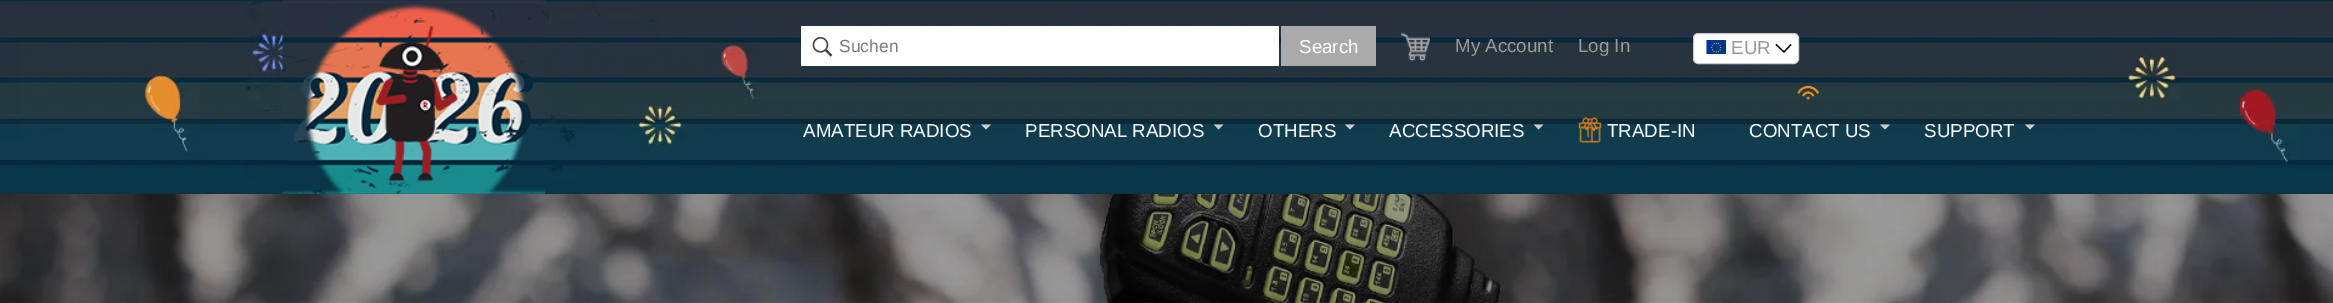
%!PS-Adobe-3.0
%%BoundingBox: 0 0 2333 303
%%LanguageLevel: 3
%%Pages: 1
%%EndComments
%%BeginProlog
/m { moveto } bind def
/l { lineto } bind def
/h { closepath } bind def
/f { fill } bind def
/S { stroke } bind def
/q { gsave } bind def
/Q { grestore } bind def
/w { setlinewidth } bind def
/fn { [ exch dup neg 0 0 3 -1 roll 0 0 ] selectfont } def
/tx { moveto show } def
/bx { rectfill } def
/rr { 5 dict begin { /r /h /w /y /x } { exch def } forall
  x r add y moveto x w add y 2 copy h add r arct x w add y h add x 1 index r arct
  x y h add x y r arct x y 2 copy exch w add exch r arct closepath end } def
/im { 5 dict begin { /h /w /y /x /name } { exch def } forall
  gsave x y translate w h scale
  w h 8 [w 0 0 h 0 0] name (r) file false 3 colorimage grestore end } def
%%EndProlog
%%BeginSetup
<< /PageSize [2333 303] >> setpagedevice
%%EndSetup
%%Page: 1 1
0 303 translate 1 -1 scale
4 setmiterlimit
1 setgray
0 0 2333 303 bx
(image7.raw) 0 193 2333 110 im
(image0.raw) 0 0 2333 194 im
(image1.raw) 282 0 263 194 im
801 26 478 40 bx
(image2.raw) 812 37 21 20 im
/Arimo-Regular 17.5 fn
0.482 setgray
(Suchen) 839 52 tx
0.667 setgray
1281 26 95 40 bx
/LiberationSans-Regular 18.75 fn
1 setgray
(Search) 1299 53 tx
(image3.raw) 1401 32 29 30 im
/Arimo-Regular 18.75 fn
0.6 setgray
(My Account) 1455 52 tx
(Log In) 1578 52 tx
1 setgray
1693.5 33.5 105 30 4.5 rr q f Q
0.8 setgray
S
(image4.raw) 1706 40 20 14 im
/LiberationSans-Regular 18.75 fn
0.6 setgray
(EUR) 1731 54 tx
0 setgray
1.2 w
1776 44.5 m 1784 52 l 1791 44.5 l S
/Arimo-Regular 18.75 fn
1 setgray
(AMATEUR RADIOS) 803 137 tx
0.8 setgray
981 124.5 m 991 124.5 l 986 129.5 l h f
1 setgray
(PERSONAL RADIOS) 1025 137 tx
0.8 setgray
1214 124.5 m 1223.5 124.5 l 1218.5 129.5 l h f
1 setgray
(OTHERS) 1258 137 tx
0.8 setgray
1345 124.5 m 1355 124.5 l 1350 129.5 l h f
1 setgray
(ACCESSORIES) 1389 137 tx
0.8 setgray
1534 124.5 m 1543.5 124.5 l 1538.5 129.5 l h f
(image5.raw) 1578 117 24 26 im
1 setgray
(TRADE-IN) 1607 137 tx
(image6.raw) 1797 85 22 15 im
(CONTACT US) 1749 137 tx
0.8 setgray
1880 124.5 m 1890 124.5 l 1885 129.5 l h f
1 setgray
(SUPPORT) 1924 137 tx
0.8 setgray
2025 124.5 m 2035 124.5 l 2030 129.5 l h f
showpage
%%EOF
